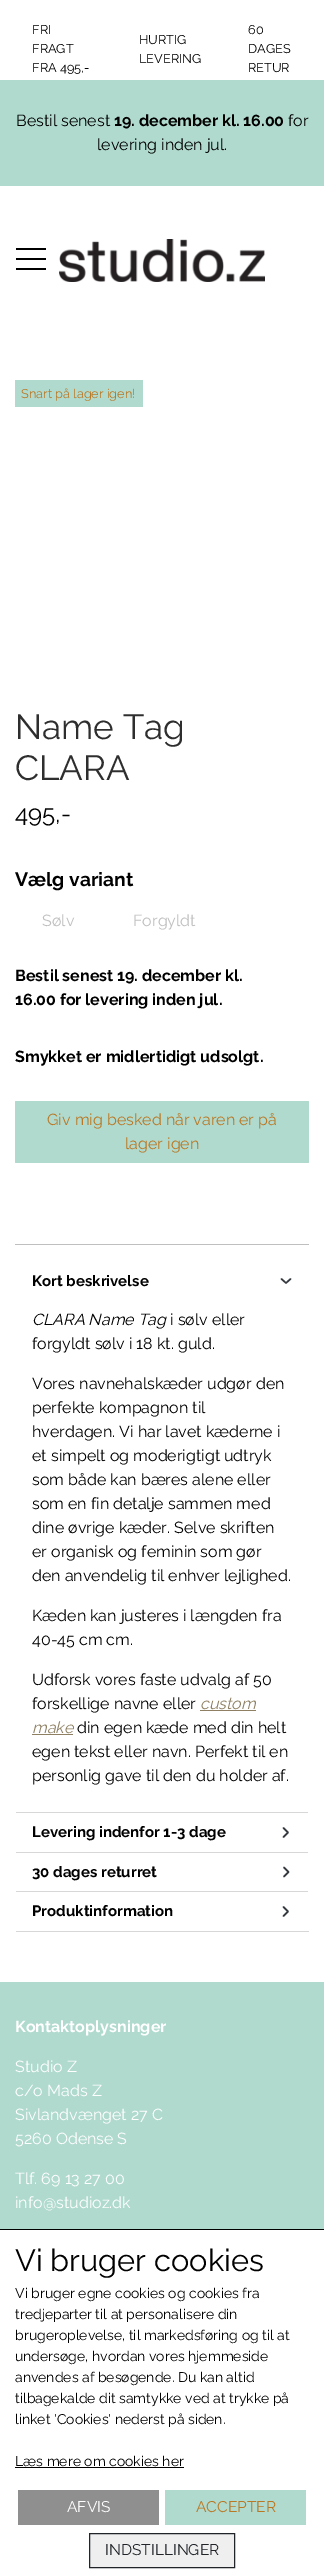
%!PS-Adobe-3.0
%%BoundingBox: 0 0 324 2575
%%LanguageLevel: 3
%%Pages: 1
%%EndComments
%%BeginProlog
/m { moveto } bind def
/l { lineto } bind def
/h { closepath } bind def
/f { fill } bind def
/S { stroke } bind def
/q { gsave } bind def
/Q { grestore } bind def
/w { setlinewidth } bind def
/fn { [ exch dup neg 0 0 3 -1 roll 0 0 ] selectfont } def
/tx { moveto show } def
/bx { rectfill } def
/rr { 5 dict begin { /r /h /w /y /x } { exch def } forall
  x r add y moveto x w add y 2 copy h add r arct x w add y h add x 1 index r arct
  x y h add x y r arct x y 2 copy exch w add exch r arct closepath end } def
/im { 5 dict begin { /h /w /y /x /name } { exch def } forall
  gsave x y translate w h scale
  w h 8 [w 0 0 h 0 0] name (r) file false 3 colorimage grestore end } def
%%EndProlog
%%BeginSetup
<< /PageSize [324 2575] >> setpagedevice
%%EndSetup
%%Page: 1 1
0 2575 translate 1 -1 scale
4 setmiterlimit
0.69 0.855 0.808 setrgbcolor
0 0 324 2575 bx
1 setgray
0 0 324 80 bx
/Raleway-Regular 12.75 fn
0 setgray
(FRI) 32 34 tx
(FRAGT) 32 53 tx
(FRA 495,-) 32 72 tx
(HURTIG) 139 44 tx
(LEVERING) 139 63 tx
(60) 248 34 tx
(DAGES) 248 53 tx
(RETUR) 248 72 tx
/Raleway-Regular 16 fn
(Bestil senest) 16 126 tx
/Raleway-Bold 16 fn
(19. december kl. 16.00) 114 126 tx
/Raleway-Regular 16 fn
(for) 288 126 tx
(levering inden jul.) 97 150 tx
1 setgray
0 186 324 1796 bx
0 setgray
16 248 30 2 bx
16 258 30 2 bx
16 268 30 2 bx
(image0.raw) 59 239 206 43 im
0.69 0.855 0.808 setrgbcolor
15 380 128 27 bx
/Raleway-Regular 12.75 fn
0.729 0.471 0.141 setrgbcolor
(Snart på lager igen!) 21 398 tx
/Raleway-Regular 35 fn
0.18 setgray
(Name Tag) 15 739 tx
(CLARA) 15 780 tx
/Raleway-Regular 24 fn
0 setgray
(495,-) 15 822 tx
/Raleway-Bold 19.25 fn
(Vælg variant) 15 886 tx
/Raleway-Regular 16 fn
0.749 setgray
(Sølv) 42 926 tx
(Forgyldt) 133 926 tx
/Raleway-Bold 16 fn
0 setgray
(Bestil senest 19. december kl.) 15 981 tx
(16.00 for levering inden jul.) 15 1005 tx
(Smykket er midlertidigt udsolgt.) 15 1062 tx
0.69 0.855 0.808 setrgbcolor
15 1101 294 62 1 rr f
/Raleway-Regular 16 fn
0.729 0.471 0.141 setrgbcolor
(Giv mig besked når varen er på) 47 1125 tx
(lager igen) 125 1149 tx
0.749 setgray
15 1244 294 1 bx
/Raleway-Bold 15 fn
0 setgray
(Kort beskrivelse) 32 1286 tx
0.204 0.227 0.251 setrgbcolor
1.5 w
1 setlinecap
1 setlinejoin
281.5 1279 m 286 1283 l 290.5 1279 l S
/Raleway-Italic 16 fn
0 setgray
(CLARA Name Tag) 32 1325 tx
/Raleway-Regular 16 fn
(i sølv eller) 170 1325 tx
(forgyldt sølv i 18 kt. guld.) 32 1349 tx
(Vores navnehalskæder udgør den) 32 1389 tx
(perfekte kompagnon til) 32 1413 tx
(hverdagen. Vi har lavet kæderne i) 32 1437 tx
(et simpelt og moderigtigt udtryk) 32 1461 tx
(som både kan bæres alene eller) 32 1485 tx
(som en fin detalje sammen med) 32 1509 tx
(dine øvrige kæder. Selve skriften) 32 1533 tx
(er organisk og feminin som gør) 32 1557 tx
(den anvendelig til enhver lejlighed.) 32 1581 tx
(Kæden kan justeres i længden fra) 32 1621 tx
(40-45 cm cm.) 32 1645 tx
(Udforsk vores faste udvalg af 50) 32 1685 tx
(forskellige navne eller) 32 1709 tx
/Raleway-Italic 16 fn
0.561 0.502 0.388 setrgbcolor
(custom) 200 1709 tx
200 1710 56 1 bx
(make) 32 1733 tx
32 1734 41 1 bx
/Raleway-Regular 16 fn
0 setgray
(din egen kæde med din helt) 77 1733 tx
(egen tekst eller navn. Perfekt til en) 32 1757 tx
(personlig gave til den du holder af.) 32 1781 tx
0.851 0.839 0.839 setrgbcolor
15 1812 294 1 bx
1 setgray
308 1812 1 1 bx
15 1812 1 1 bx
/Raleway-Bold 15 fn
0 setgray
(Levering indenfor 1-3 dage) 32 1837 tx
0.851 0.839 0.839 setrgbcolor
15 1852 294 1 bx
0.204 0.227 0.251 setrgbcolor
283.5 1837 m 288 1832.5 l 283.5 1828 l 284 1876.5 m 288.5 1872 l 284 1867.5 l S
1 setgray
308 1852 1 1 bx
15 1852 1 1 bx
0 setgray
(30 dages returret) 32 1877 tx
0.851 0.839 0.839 setrgbcolor
15 1891 294 1 bx
1 setgray
308 1891 1 1 bx
0.851 0.839 0.839 setrgbcolor
15 1931 294 1 bx
1 setgray
15 1891 1 41 bx
0 setgray
(Produktinformation) 32 1916 tx
0.204 0.227 0.251 setrgbcolor
283.5 1916 m 288 1911.5 l 283.5 1907 l S
/Raleway-Bold 16 fn
1 setgray
(Kontaktoplysninger) 15 2032 tx
/Raleway-Regular 16 fn
(Studio Z) 15 2072 tx
(c/o Mads Z) 15 2096 tx
(Sivlandvænget 27 C) 15 2120 tx
(5260 Odense S) 15 2144 tx
(Tlf. 69 13 27 00) 15 2184 tx
(info@studioz.dk) 15 2208 tx
0 2230 324 345 bx
0 setgray
0 2229 324 1 bx
/Raleway-Regular 30.75 fn
(Vi bruger cookies) 15 2271 tx
/Raleway-Regular 14 fn
(Vi bruger egne cookies og cookies fra) 15 2298 tx
(tredjeparter til at personalisere din) 15 2319 tx
(brugeroplevelse, til markedsføring og til at) 15 2340 tx
(undersøge, hvordan vores hjemmeside) 15 2361 tx
(anvendes af besøgende. Du kan altid) 15 2382 tx
(tilbagekalde dit samtykke ved at trykke på) 15 2403 tx
(linket 'Cookies' nederst på siden.) 15 2424 tx
(Læs mere om cookies her) 15 2466 tx
15 2467 169 1 bx
0.561 setgray
18 2490 141 35 bx
/Raleway-Regular 15.5 fn
1 setgray
(AFVIS) 67 2512 tx
0.69 0.855 0.808 setrgbcolor
165 2490 141 35 bx
0.729 0.471 0.141 setrgbcolor
(ACCEPTER) 196 2512 tx
0.937 setgray
89.5 2533.5 m 234.5 2533.5 l 234.5 2567.5 l 89.5 2567.5 l h q f Q
0.129 0.145 0.161 setrgbcolor
1 w
0 setlinecap
0 setlinejoin
S
(INDSTILLINGER) 105 2555 tx
showpage
%%EOF
